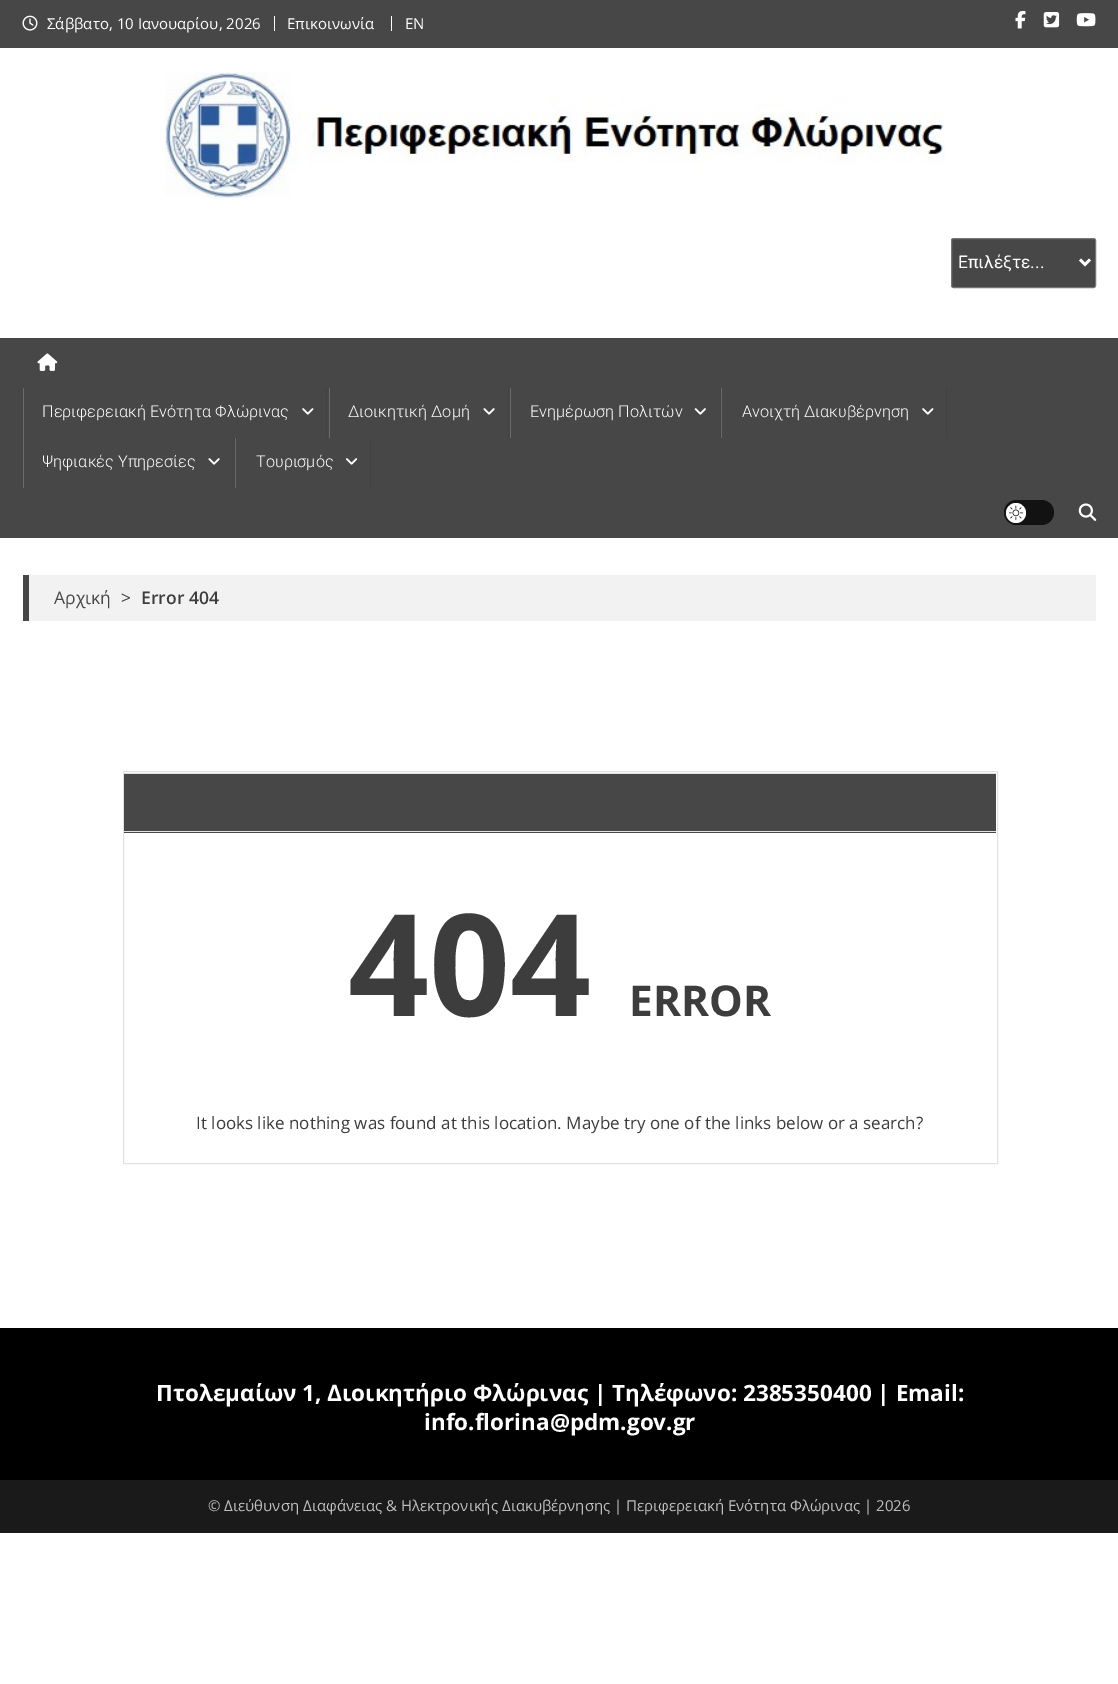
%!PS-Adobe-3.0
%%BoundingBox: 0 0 1118 1684
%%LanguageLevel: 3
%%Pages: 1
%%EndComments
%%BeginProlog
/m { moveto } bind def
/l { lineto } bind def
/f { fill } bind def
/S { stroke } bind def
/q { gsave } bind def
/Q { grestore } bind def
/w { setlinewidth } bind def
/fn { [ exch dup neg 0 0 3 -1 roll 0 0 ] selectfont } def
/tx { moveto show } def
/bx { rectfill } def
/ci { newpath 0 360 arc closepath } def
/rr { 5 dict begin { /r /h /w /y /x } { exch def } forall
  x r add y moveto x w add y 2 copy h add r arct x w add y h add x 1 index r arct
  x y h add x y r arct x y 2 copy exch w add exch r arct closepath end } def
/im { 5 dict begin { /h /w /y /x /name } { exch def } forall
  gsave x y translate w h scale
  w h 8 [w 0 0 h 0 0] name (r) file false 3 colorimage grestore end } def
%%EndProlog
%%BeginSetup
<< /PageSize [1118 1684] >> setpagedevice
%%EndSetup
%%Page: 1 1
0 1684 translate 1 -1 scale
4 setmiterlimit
1 setgray
0 0 1118 1684 bx
0.278 setgray
0 0 1118 48 bx
(image0.raw) 22 15 16 16 im
/OpenSans-Regular 15 fn
1 setgray
(Σάββατο, 10 Ιανουαρίου, 2026) 47 29 tx
274 16 1 15 bx
(Επικοινωνία) 287 29 tx
391 16 1 15 bx
(EN) 405 29 tx
(image1.raw) 1015 10 11 19 im
(image2.raw) 1043 12 17 16 im
(image3.raw) 1076 13 20 14 im
(image4.raw) 165 72 780 126 im
0.278 setgray
951.5 238.5 144 49 2 rr q f Q
0.463 setgray
S
1 setgray
2.5 w
1080 259.5 m 1085 264.5 l 1090 259.5 l S
/Roboto-Regular 17.5 fn
(Επιλέξτε...) 958 268 tx
0.278 setgray
0 338 1118 200 bx
(image5.raw) 37 353 21 18 im
0.255 setgray
326 388 1 50 bx
0.424 setgray
23 388 1 100 bx
/Roboto-Light 16.25 fn
1 setgray
(Περιφερειακή Ενότητα Φλώρινας) 42 417 tx
(image6.raw) 302 408 12 7 im
0.255 setgray
508 388 1 50 bx
0.424 setgray
329 388 1 50 bx
1 setgray
(Διοικητική Δομή) 348 417 tx
(image7.raw) 483 408 12 7 im
0.255 setgray
720 388 1 50 bx
0.424 setgray
510 388 1 50 bx
1 setgray
(Ενημέρωση Πολιτών) 530 417 tx
(image8.raw) 694 408 12 7 im
0.255 setgray
946 388 1 50 bx
0.424 setgray
721 388 1 50 bx
1 setgray
(Ανοιχτή Διακυβέρνηση) 742 417 tx
(image6.raw) 922 408 12 7 im
0.255 setgray
234 438 1 50 bx
1 setgray
(Ψηφιακές Υπηρεσίες) 42 467 tx
(image7.raw) 208 458 12 7 im
0.255 setgray
370 438 1 50 bx
0.424 setgray
235 438 1 50 bx
1 setgray
(Τουρισμός) 256 467 tx
(image9.raw) 346 458 12 7 im
0.071 setgray
1004 500 50 25 12.5 rr f
1 setgray
1016 513 10 ci f
(image10.raw) 1009 505 14 15 im
(image11.raw) 1078 503 19 18 im
0.949 setgray
29 575 1067 46 bx
0.278 setgray
23 575 6 46 bx
/OpenSans-Regular 17.5 fn
(Αρχική) 54 604 tx
0.239 setgray
(>) 121 604 tx
/OpenSans-SemiBold 17.5 fn
(Error 404) 141 604 tx
0.882 setgray
1 w
123.5 771.5 874 392 rectstroke
0.278 setgray
124 774 872 59 bx
0.882 setgray
124 773 872 1 bx
124 831 872 1 bx
/OpenSans-Bold 142 fn
0.239 setgray
(404) 348 1016 tx
/OpenSans-Bold 42.5 fn
(ERROR) 629 1016 tx
/OpenSans-Regular 17 fn
(It looks like nothing was found at this location. Maybe try one of the links below or a search?) 196 1129 tx
0 setgray
0 1328 1118 152 bx
/OpenSans-Bold 22.5 fn
1 setgray
(Πτολεμαίων 1, Διοικητήριο Φλώρινας | Τηλέφωνο: 2385350400 | Email:) 156 1401 tx
(info.florina@pdm.gov.gr) 424 1430 tx
0.102 setgray
0 1480 1118 53 bx
/OpenSans-Regular 15 fn
0.749 setgray
(© Διεύθυνση Διαφάνειας & Ηλεκτρονικής Διακυβέρνησης | Περιφερειακή Ενότητα Φλώρινας | 2026) 208 1511 tx
showpage
%%EOF
